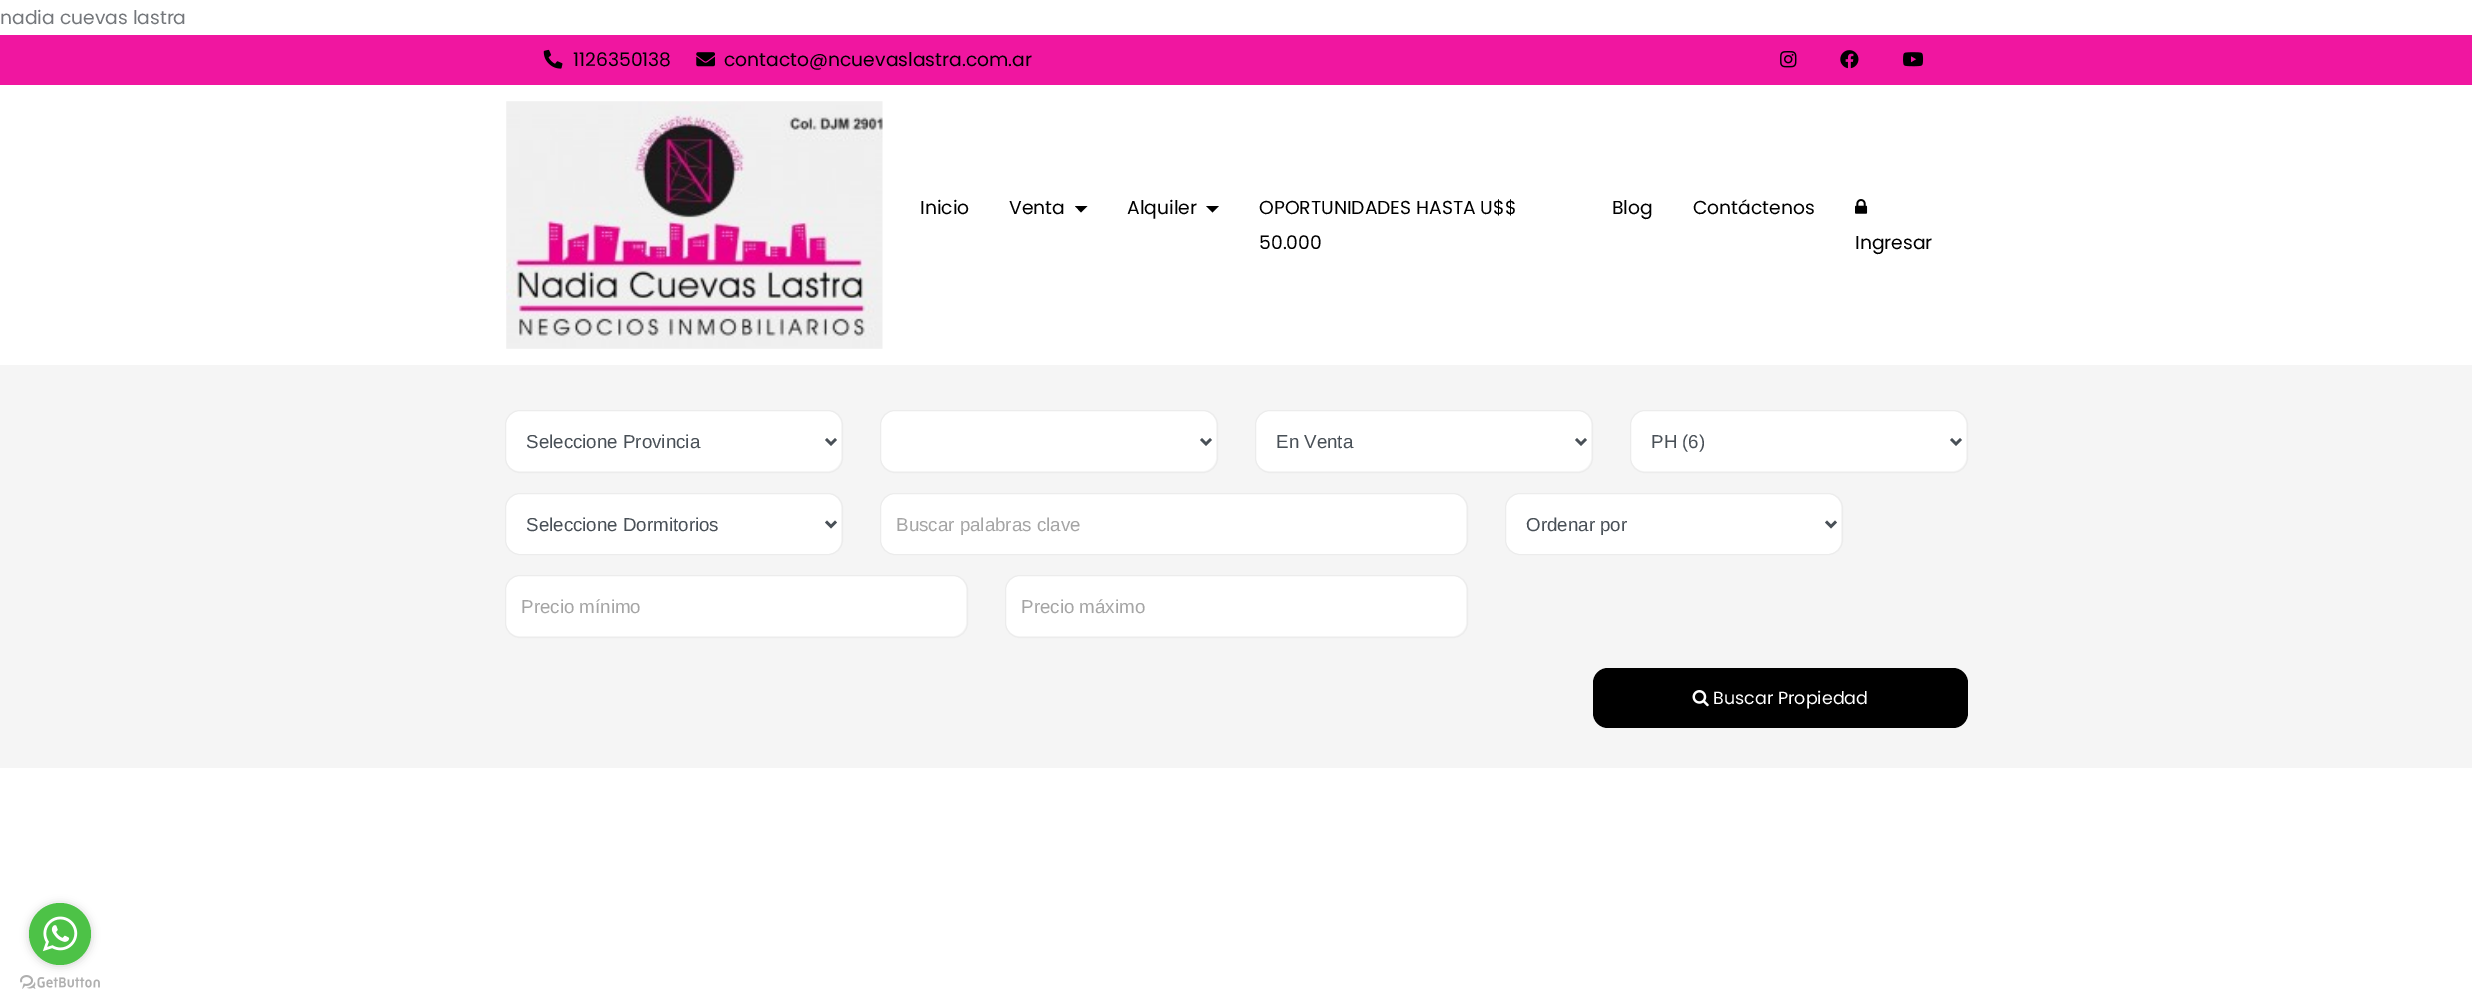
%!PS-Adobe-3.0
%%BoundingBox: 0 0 2472 1006
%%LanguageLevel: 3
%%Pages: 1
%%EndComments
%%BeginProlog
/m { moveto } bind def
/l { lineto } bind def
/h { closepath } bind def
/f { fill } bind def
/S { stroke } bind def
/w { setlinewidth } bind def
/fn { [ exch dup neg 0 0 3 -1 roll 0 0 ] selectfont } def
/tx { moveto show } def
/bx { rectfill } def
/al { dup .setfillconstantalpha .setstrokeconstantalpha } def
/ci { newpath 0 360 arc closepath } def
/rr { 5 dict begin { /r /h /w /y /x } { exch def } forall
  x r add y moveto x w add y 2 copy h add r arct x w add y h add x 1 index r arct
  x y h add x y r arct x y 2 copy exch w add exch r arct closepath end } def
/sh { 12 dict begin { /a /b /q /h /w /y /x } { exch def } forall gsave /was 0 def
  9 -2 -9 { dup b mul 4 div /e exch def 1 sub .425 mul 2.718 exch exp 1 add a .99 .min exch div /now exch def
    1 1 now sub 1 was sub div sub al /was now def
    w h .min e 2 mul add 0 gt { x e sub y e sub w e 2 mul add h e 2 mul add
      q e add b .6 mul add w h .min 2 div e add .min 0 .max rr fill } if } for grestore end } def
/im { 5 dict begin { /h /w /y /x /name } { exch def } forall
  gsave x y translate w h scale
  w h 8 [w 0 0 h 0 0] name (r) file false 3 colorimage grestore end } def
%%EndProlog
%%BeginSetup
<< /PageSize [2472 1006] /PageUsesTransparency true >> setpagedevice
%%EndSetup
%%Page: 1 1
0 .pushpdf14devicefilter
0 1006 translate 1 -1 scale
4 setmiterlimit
1 setgray
0 0 2472 1006 bx
/Poppins-Regular 18.75 fn
0.455 0.467 0.482 setrgbcolor
(nadia cuevas lastra) 0 24 tx
0.941 0.086 0.627 setrgbcolor
0 35 2472 50 bx
(image0.raw) 543 49 20 20 im
0 setgray
(1126350138) 573 66 tx
(image1.raw) 696 52 19 15 im
(contacto@ncuevaslastra.com.ar) 724 66 tx
(image2.raw) 1780 51 17 17 im
(image3.raw) 1840 50 19 19 im
(image4.raw) 1903 52 21 15 im
(image5.raw) 506 101 377 248 im
(Inicio) 920 214 tx
(Venta) 1009 214 tx
1075 206 m 1087.5 206 l 1081 212.5 l h f
(Alquiler) 1127 214 tx
1206 206 m 1219 206 l 1212.5 212.5 l h f
(OPORTUNIDADES HASTA U$$) 1259 214 tx
(50.000) 1259 249 tx
(Blog) 1612 214 tx
(Contáctenos) 1693 214 tx
(image6.raw) 1855 199 13 15 im
(Ingresar) 1855 249 tx
0.961 setgray
0 365 2472 403 bx
1 setgray
506 411 335 60 14 rr f
0.925 setgray
505.5 410.5 337 62 14.5 rr S
0.286 0.314 0.341 setrgbcolor
2.5 w
826 439 m 831 444 l 836 439 l S
/LiberationSans-Regular 18.75 fn
(Seleccione Provincia) 526 448 tx
1 setgray
881 411 335 60 14 rr f
0.925 setgray
1 w
880.5 410.5 337 62 14.5 rr S
0.286 0.314 0.341 setrgbcolor
2.5 w
1201 439 m 1206 444 l 1211 439 l S
1 setgray
1256 411 335 60 14 rr f
0.925 setgray
1 w
1255.5 410.5 337 62 14.5 rr S
0.286 0.314 0.341 setrgbcolor
2.5 w
1576 439 m 1581 444 l 1586 439 l S
(En Venta) 1276 448 tx
1 setgray
1631 411 335 60 14 rr f
0.925 setgray
1 w
1630.5 410.5 337 62 14.5 rr S
0.286 0.314 0.341 setrgbcolor
2.5 w
1951 439 m 1956 444 l 1961 439 l S
(PH \(6\)) 1651 448 tx
1 setgray
506 494 335 60 14 rr f
0.925 setgray
1 w
505.5 493.5 337 61 14.5 rr S
0.286 0.314 0.341 setrgbcolor
2.5 w
826 521.5 m 831 526.5 l 836 521.5 l S
(Seleccione Dormitorios) 526 531 tx
1 setgray
881 494 585 60 14 rr f
0.925 setgray
1 w
880.5 493.5 587 61 14.5 rr S
0.647 setgray
(Buscar palabras clave) 896 531 tx
1 setgray
1506 494 335 60 14 rr f
0.925 setgray
1505.5 493.5 337 61 14.5 rr S
0.286 0.314 0.341 setrgbcolor
2.5 w
1826 521.5 m 1831 526.5 l 1836 521.5 l S
(Ordenar por) 1526 531 tx
1 setgray
506 576 460 60 14 rr f
0.925 setgray
1 w
505.5 575.5 462 62 14.5 rr S
0.647 setgray
(Precio mínimo) 521 613 tx
1 setgray
1006 576 460 60 14 rr f
0.925 setgray
1005.5 575.5 462 62 14.5 rr S
0.647 setgray
(Precio máximo) 1021 613 tx
0 setgray
1593 668 375 60 15 rr f
(image7.raw) 1692 690 17 17 im
/Poppins-Regular 17.5 fn
1 setgray
(Buscar Propiedad) 1713 704 tx
(image9.raw) 20 975 80 14 im
0.533 setgray
29 904 62 62 31 4.5 0.4 sh
0.302 0.761 0.278 setrgbcolor
60 934 31 ci f
(image8.raw) 42 916 36 36 im
.poppdf14devicefilter showpage
%%EOF
